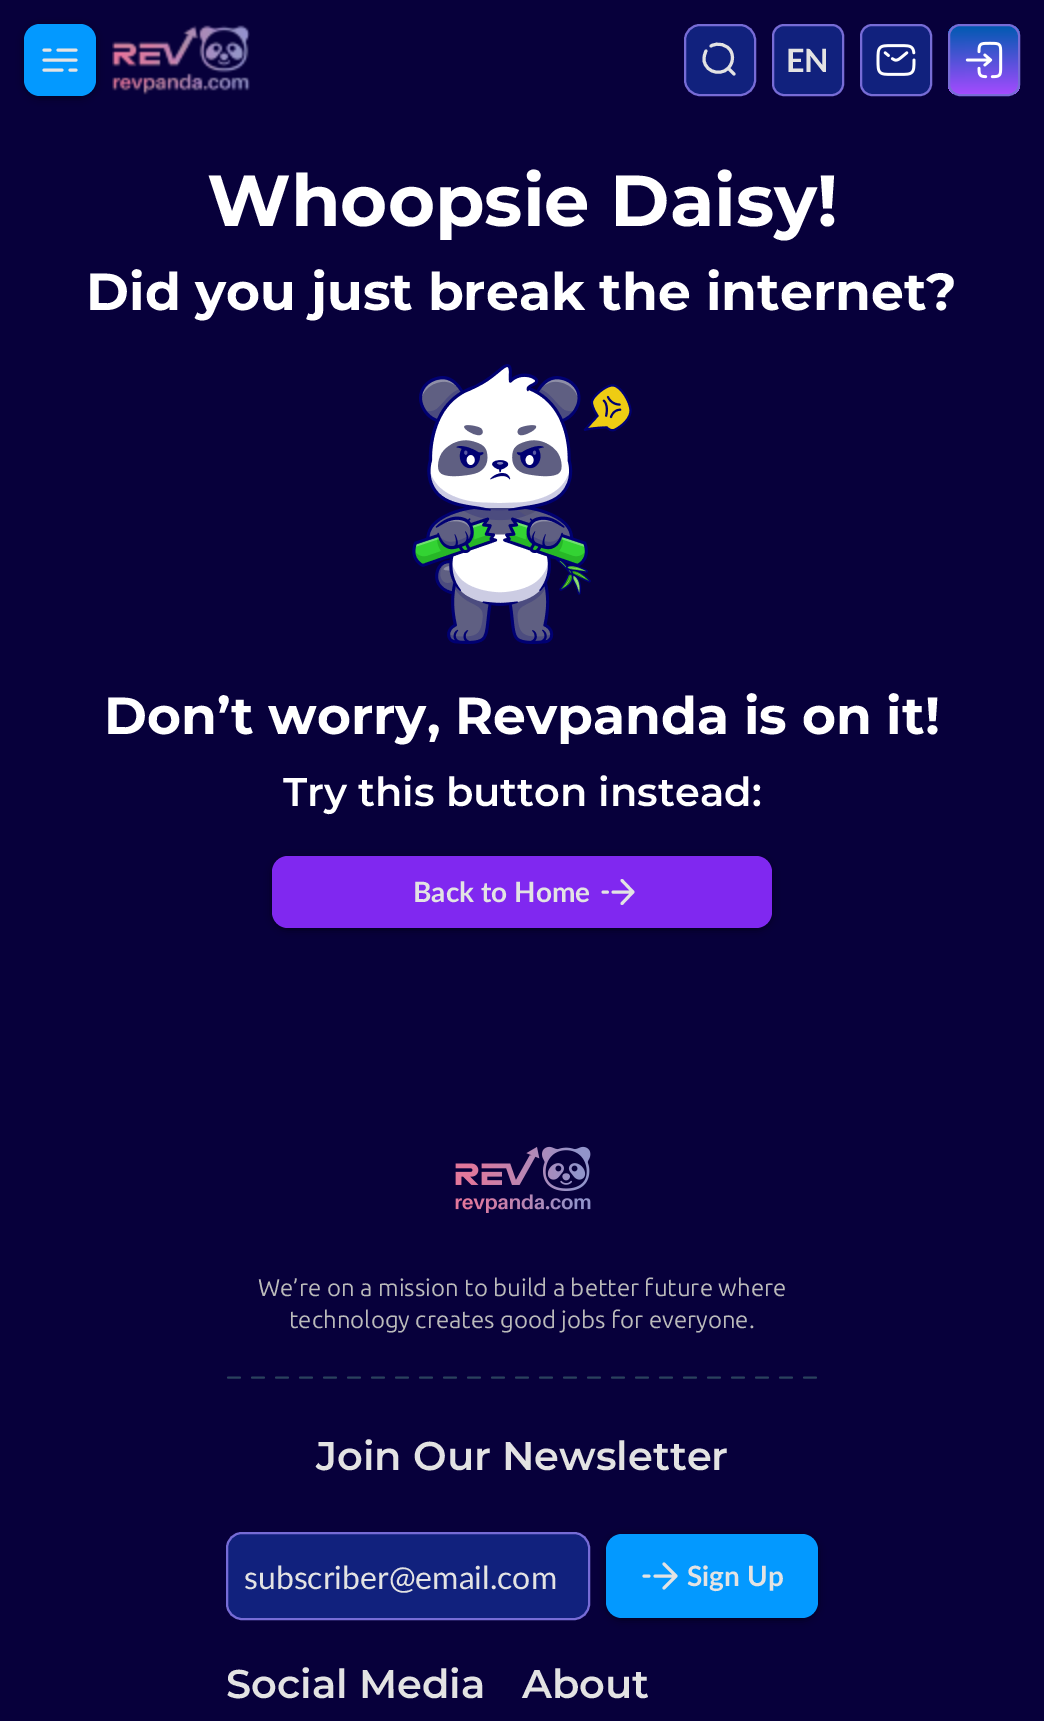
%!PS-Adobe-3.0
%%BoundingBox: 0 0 1044 1721
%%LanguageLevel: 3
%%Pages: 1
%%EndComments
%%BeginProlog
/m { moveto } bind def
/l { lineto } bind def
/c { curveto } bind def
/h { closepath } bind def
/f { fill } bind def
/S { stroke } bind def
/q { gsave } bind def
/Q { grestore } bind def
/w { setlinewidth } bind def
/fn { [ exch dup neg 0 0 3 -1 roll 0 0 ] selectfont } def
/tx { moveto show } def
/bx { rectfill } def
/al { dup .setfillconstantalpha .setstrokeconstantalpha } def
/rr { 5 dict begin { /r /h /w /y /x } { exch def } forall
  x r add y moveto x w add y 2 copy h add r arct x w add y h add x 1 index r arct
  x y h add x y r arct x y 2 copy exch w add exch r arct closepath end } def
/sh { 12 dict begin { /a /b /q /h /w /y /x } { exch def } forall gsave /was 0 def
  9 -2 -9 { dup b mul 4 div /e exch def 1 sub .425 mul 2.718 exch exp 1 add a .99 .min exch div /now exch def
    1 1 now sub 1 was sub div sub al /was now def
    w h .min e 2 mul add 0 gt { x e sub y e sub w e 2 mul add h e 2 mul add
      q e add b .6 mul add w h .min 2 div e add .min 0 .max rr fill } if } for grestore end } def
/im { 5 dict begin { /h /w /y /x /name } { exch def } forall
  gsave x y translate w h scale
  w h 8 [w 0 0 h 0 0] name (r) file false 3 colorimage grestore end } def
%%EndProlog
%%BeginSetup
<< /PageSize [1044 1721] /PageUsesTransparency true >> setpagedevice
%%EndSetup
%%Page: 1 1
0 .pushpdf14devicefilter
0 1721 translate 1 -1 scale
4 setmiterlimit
0.027 0 0.231 setrgbcolor
0 0 1044 1721 bx
0 setgray
24 26 72 72 16 4 0.5 sh
0.012 0.6 1 setrgbcolor
24 24 72 72 16 rr f
0.89 setgray
3 w
1 setlinecap
44 50 m 50 50 l 76 50 m 58 50 l 76 70 m 70 70 l 44 70 m 62 70 l 44 60 m 76 60 l S
(image0.raw) 112 25 138 70 im
0.067 0.129 0.49 setrgbcolor
685 25 70 70 15 rr q f Q
0.467 0.424 0.839 setrgbcolor
2 w
0 setlinecap
S
0.89 setgray
3 w
1 setlinecap
729 69 m 734 74 l 711 46 m 718 42 727.5 44.5 731 51.5 c 733 55.5 733 60 731 64 c 725.5 77 705.5 74 704 60 c 704 57 704.5 53.5 706 51 c S
0.067 0.129 0.49 setrgbcolor
773 25 70 70 11 rr q f Q
0.467 0.424 0.839 setrgbcolor
2 w
0 setlinecap
S
/Lato-Bold 32 fn
0.89 setgray
(EN) 786 72 tx
0.067 0.129 0.49 setrgbcolor
861 25 70 70 11 rr q f Q
0.467 0.424 0.839 setrgbcolor
S
(image1.raw) 876 44 40 32 im
q
948 24 72 72 12 rr clip newpath
q 948 26 m 1020 26 l 1020 94 l 948 94 l h clip newpath
<< /ShadingType 2 /ColorSpace /DeviceRGB /Coords [984 26 984 94] /Extend [true true] /Function << /FunctionType 2 /Domain [0 1] /C0 [0 0.353 0.694] /C1 [0.643 0.294 1] /N 1 >> >> shfill Q
Q
949 25 70 70 11 rr S
(image2.raw) 965 41 38 38 im
/Montserrat-Bold 72 fn
1 setgray
(Whoopsie Daisy!) 207 226 tx
/Montserrat-Bold 52 fn
(Did you just break the internet?) 86 310 tx
(image3.raw) 412 364 220 280 im
(Don’t worry, Revpanda is on it!) 104 734 tx
/Montserrat-SemiBold 40 fn
(Try this button instead:) 283 806 tx
0 setgray
272 858 500 72 16 4 0.5 sh
0.502 0.157 0.941 setrgbcolor
272 856 500 72 16 rr f
/Lato-Bold 28 fn
0.89 setgray
(Back to Home) 413 902 tx
2.9 w
1 setlinecap
1 setlinejoin
603 892 m 607.5 892 l 633 892 m 622 903.5 l 633 892 m 622 880.5 l 633 892 m 613 892 l S
(image4.raw) 455 1146 136 67 im
/Ubuntu-Regular 24 fn
0.733 setgray
(We’re on a mission to build a better future where) 258 1296 tx
(technology creates good jobs for everyone.) 289 1328 tx
q
226 1376 592 4 rectclip
0.165 0.259 0.365 setrgbcolor
2 w
0 setlinejoin
[12 12] 0 setdash
228 1377.5 m 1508 1377.5 l S
Q
/Montserrat-SemiBold 40 fn
0.89 setgray
(Join Our Newsletter) 316 1470 tx
0.067 0.129 0.49 setrgbcolor
227 1533 362 86 15 rr q f Q
0.467 0.424 0.839 setrgbcolor
2 w
0 setlinecap
0 setlinejoin
S
/Lato-Regular 32 fn
0.89 setgray
(subscriber@email.com) 244 1589 tx
0 setgray
606 1536 212 84 16 4 0.5 sh
0.012 0.6 1 setrgbcolor
606 1534 212 84 16 rr f
0.89 setgray
3 w
1 setlinecap
1 setlinejoin
644 1576 m 649 1576 l 676 1576 m 664 1588 l 676 1576 m 664 1564 l 676 1576 m 655 1576 l S
/Lato-Bold 28 fn
(Sign Up) 687 1586 tx
/Montserrat-SemiBold 40 fn
(Social Media) 226 1698 tx
(About) 522 1698 tx
.poppdf14devicefilter showpage
%%EOF
